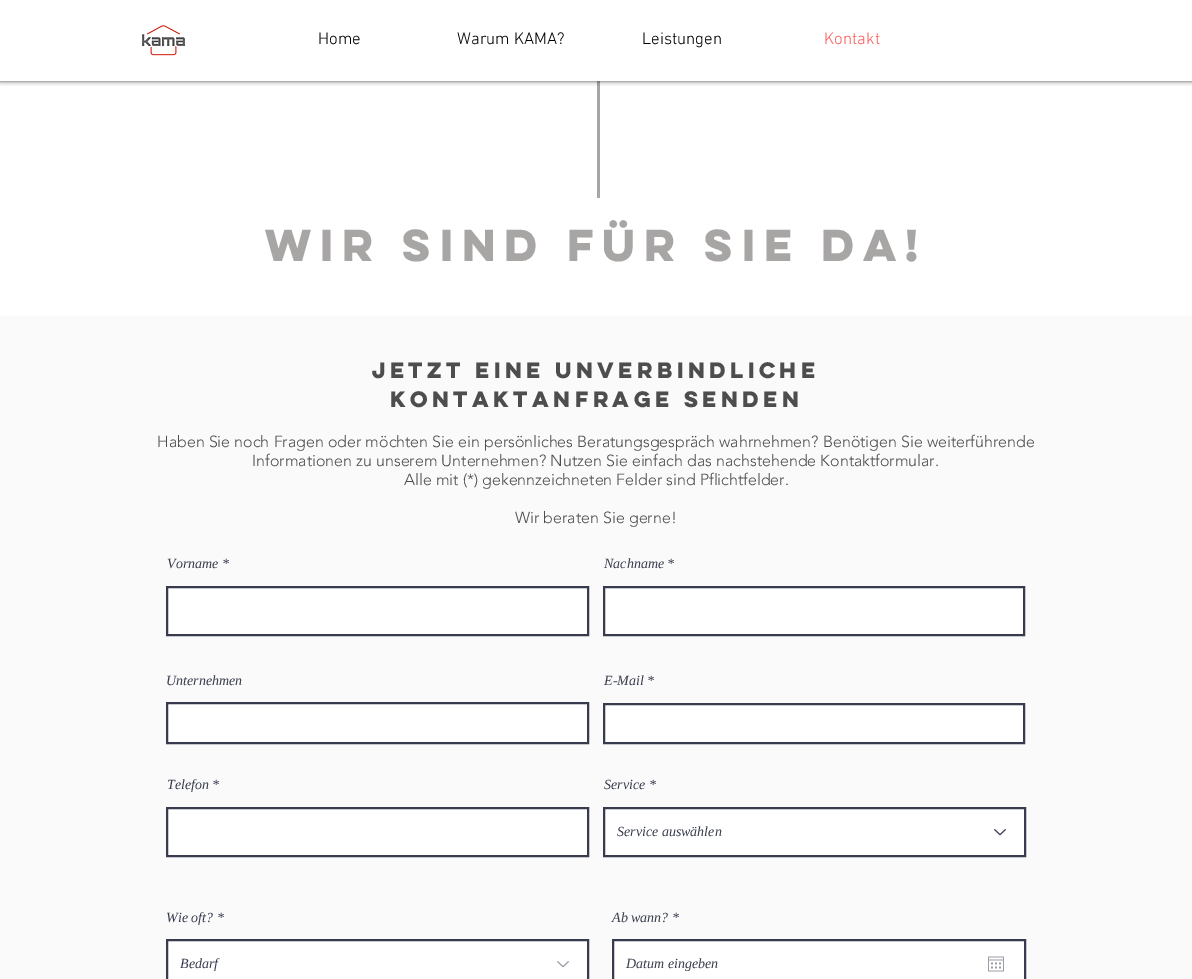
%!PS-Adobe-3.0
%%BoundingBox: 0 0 1192 979
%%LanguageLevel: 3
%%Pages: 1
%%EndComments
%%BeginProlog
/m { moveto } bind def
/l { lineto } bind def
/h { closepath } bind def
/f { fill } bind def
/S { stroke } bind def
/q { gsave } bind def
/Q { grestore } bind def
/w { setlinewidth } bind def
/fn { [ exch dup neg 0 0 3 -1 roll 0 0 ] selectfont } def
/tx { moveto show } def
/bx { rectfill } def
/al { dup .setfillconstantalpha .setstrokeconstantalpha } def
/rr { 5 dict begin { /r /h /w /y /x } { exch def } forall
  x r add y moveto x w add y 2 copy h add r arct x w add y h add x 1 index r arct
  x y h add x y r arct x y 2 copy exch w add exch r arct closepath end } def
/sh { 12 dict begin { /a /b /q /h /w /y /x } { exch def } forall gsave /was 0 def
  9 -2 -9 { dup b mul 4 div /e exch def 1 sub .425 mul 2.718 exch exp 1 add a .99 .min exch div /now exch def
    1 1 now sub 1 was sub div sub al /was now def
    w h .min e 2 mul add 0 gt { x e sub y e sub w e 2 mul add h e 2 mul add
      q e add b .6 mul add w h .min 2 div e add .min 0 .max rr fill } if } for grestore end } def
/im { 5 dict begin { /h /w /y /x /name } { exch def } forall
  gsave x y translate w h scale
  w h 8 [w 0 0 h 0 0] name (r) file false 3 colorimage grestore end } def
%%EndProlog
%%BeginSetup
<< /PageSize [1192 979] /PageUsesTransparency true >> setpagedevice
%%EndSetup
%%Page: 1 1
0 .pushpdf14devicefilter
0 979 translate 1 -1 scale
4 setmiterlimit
1 setgray
0 0 1192 979 bx
0.659 0.647 0.647 setrgbcolor
597 81 3 117 bx
q
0 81 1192 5 rectclip
0 setgray
0 0 1192 81 0 2.5 0.7 sh
Q
(image0.raw) 141 25 45 31 im
/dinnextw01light-Light 17 fn
0 setgray
(Home) 318 44 tx
(Warum KAMA?) 457 44 tx
(Leistungen) 642 44 tx
0.98 0.373 0.373 setrgbcolor
(Kontakt) 824 44 tx
/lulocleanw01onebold-Bold 40 fn
0.659 0.647 0.647 setrgbcolor
(WIR SIND FÜR SIE DA!) 265 261 tx
0.98 setgray
0 316 1192 663 bx
/lulocleanw01onebold-Bold 20 fn
0.302 setgray
(Jetzt eine unverbindliche) 372 378 tx
(KONTAKTANFRAGE SENDEN) 390 407 tx
/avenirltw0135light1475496-Light 16 fn
(Haben Sie noch Fragen oder möchten Sie ein persönliches Beratungsgespräch wahrnehmen? Benötigen Sie weiterführende) 157 447 tx
(Informationen zu unserem Unternehmen? Nutzen Sie einfach das nachstehende Kontaktformular.) 252 466 tx
(Alle mit \(*\) gekennzeichneten Felder sind Pflichtfelder.) 404 485 tx
(Wir beraten Sie gerne!) 515 523 tx
/LiberationSerif-Italic 14 fn
0.216 0.231 0.302 setrgbcolor
(Vorname *) 167 568 tx
1 setgray
167 587 m 588 587 l 588 635 l 167 635 l h q f Q
0.216 0.231 0.302 setrgbcolor
2 w
S
(Nachname *) 604 568 tx
1 setgray
604 587 m 1024 587 l 1024 635 l 604 635 l h q f Q
0.216 0.231 0.302 setrgbcolor
S
(Unternehmen) 166 685 tx
1 setgray
167 703 m 588 703 l 588 743 l 167 743 l h q f Q
0.216 0.231 0.302 setrgbcolor
S
(E-Mail *) 604 685 tx
1 setgray
604 704 m 1024 704 l 1024 743 l 604 743 l h q f Q
0.216 0.231 0.302 setrgbcolor
S
(Telefon *) 167 789 tx
1 setgray
167 808 m 588 808 l 588 856 l 167 856 l h q f Q
0.216 0.231 0.302 setrgbcolor
S
(Service *) 604 789 tx
1 setgray
604 808 m 1025 808 l 1025 856 l 604 856 l h q f Q
0.216 0.231 0.302 setrgbcolor
S
(Service auswählen) 617 836 tx
(image1.raw) 994 829 12 7 im
(Wie oft? *) 166 922 tx
1 setgray
167 940 m 588 940 l 588 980 l 167 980 l h q f Q
0.216 0.231 0.302 setrgbcolor
S
(Bedarf) 180 968 tx
(image2.raw) 557 961 12 7 im
(Ab wann? *) 612 922 tx
1 setgray
613 940 m 1025 940 l 1025 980 l 613 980 l h q f Q
0.216 0.231 0.302 setrgbcolor
S
(Datum eingeben) 626 968 tx
(image3.raw) 988 956 16 16 im
.poppdf14devicefilter showpage
%%EOF
